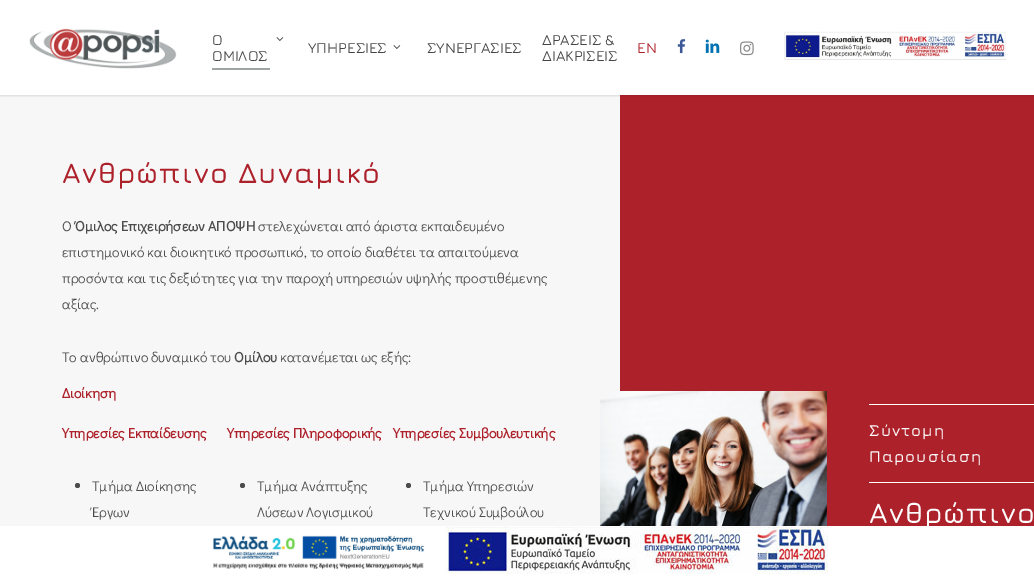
%!PS-Adobe-3.0
%%BoundingBox: 0 0 1034 584
%%LanguageLevel: 3
%%Pages: 1
%%EndComments
%%BeginProlog
/m { moveto } bind def
/f { fill } bind def
/q { gsave } bind def
/Q { grestore } bind def
/fn { [ exch dup neg 0 0 3 -1 roll 0 0 ] selectfont } def
/tx { moveto show } def
/bx { rectfill } def
/al { dup .setfillconstantalpha .setstrokeconstantalpha } def
/ci { newpath 0 360 arc closepath } def
/rr { 5 dict begin { /r /h /w /y /x } { exch def } forall
  x r add y moveto x w add y 2 copy h add r arct x w add y h add x 1 index r arct
  x y h add x y r arct x y 2 copy exch w add exch r arct closepath end } def
/sh { 12 dict begin { /a /b /q /h /w /y /x } { exch def } forall gsave /was 0 def
  9 -2 -9 { dup b mul 4 div /e exch def 1 sub .425 mul 2.718 exch exp 1 add a .99 .min exch div /now exch def
    1 1 now sub 1 was sub div sub al /was now def
    w h .min e 2 mul add 0 gt { x e sub y e sub w e 2 mul add h e 2 mul add
      q e add b .6 mul add w h .min 2 div e add .min 0 .max rr fill } if } for grestore end } def
/im { 5 dict begin { /h /w /y /x /name } { exch def } forall
  gsave x y translate w h scale
  w h 8 [w 0 0 h 0 0] name (r) file false 3 colorimage grestore end } def
%%EndProlog
%%BeginSetup
<< /PageSize [1034 584] /PageUsesTransparency true >> setpagedevice
%%EndSetup
%%Page: 1 1
0 .pushpdf14devicefilter
0 584 translate 1 -1 scale
4 setmiterlimit
1 setgray
0 0 1034 584 bx
0.969 setgray
0 95 620 431 bx
0.678 0.129 0.169 setrgbcolor
620 95 414 431 bx
q
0 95 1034 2 rectclip
0 setgray
0 0 1034 95 0 1.5 0.22 sh
Q
(image0.raw) 29 28 148 41 im
/Jura-Medium 15 fn
0.267 setgray
(Ο) 212 45 tx
(ΟΜΙΛΟΣ) 212 61 tx
0.624 0.647 0.639 setrgbcolor
212 68 58 2 bx
(image1.raw) 276 37 8 4 im
0.267 setgray
(ΥΠΗΡΕΣΙΕΣ) 308 53 tx
(image1.raw) 393 45 8 4 im
(ΣΥΝΕΡΓΑΣΙΕΣ) 427 53 tx
(ΔΡΑΣΕΙΣ &) 542 45 tx
(ΔΙΑΚΡΙΣΕΙΣ) 542 61 tx
0.678 0.129 0.169 setrgbcolor
(EN) 637 53 tx
(image2.raw) 677 39 9 15 im
(image3.raw) 705 39 15 14 im
(image4.raw) 740 41 14 15 im
(image5.raw) 784 31 222 29 im
/Jura-SemiBold 28.9 fn
62 183 m 1 0 (Ανθρώπινο Δυναμικό) ashow
/DidactGothic-Regular 14 fn
0.298 setgray
(Ο) 62 231 tx
/DidactGothic-Bold 14 fn
(Όμιλος Επιχειρήσεων ΑΠΟΨΗ) 75 231 tx
/DidactGothic-Regular 14 fn
(στελεχώνεται από άριστα εκπαιδευμένο) 258 231 tx
(επιστημονικό και διοικητικό προσωπικό, το οποίο διαθέτει τα απαιτούμενα) 62 257 tx
(προσόντα και τις δεξιότητες για την παροχή υπηρεσιών υψηλής προστιθέμενης) 62 283 tx
(αξίας.) 62 309 tx
(Το ανθρώπινο δυναμικό του) 62 362 tx
/DidactGothic-Bold 14 fn
(Ομίλου) 234 362 tx
/DidactGothic-Regular 14 fn
(κατανέμεται ως εξής:) 280 362 tx
/DidactGothic-Bold 14 fn
0.678 0.129 0.169 setrgbcolor
(Διοίκηση) 62 398 tx
(Υπηρεσίες Εκπαίδευσης) 62 438 tx
0.298 setgray
77.5 485.5 2.5 ci f
/DidactGothic-Regular 14 fn
(Τμήμα Διοίκησης) 92 491 tx
(Έργων) 92 517 tx
/DidactGothic-Bold 14 fn
0.678 0.129 0.169 setrgbcolor
(Υπηρεσίες Πληροφορικής) 227 438 tx
0.298 setgray
242.5 485.5 2.5 ci f
/DidactGothic-Regular 14 fn
(Τμήμα Ανάπτυξης) 257 491 tx
(Λύσεων Λογισμικού) 257 517 tx
/DidactGothic-Bold 14 fn
0.678 0.129 0.169 setrgbcolor
(Υπηρεσίες Συμβουλευτικής) 393 438 tx
0.298 setgray
408.5 485.5 2.5 ci f
/DidactGothic-Regular 14 fn
(Τμήμα Υπηρεσιών) 423 491 tx
(Τεχνικού Συμβούλου) 423 517 tx
(image6.raw) 600 391 227 135 im
1 setgray
869 404 165 1 bx
/Jura-SemiBold 16 fn
0.988 setgray
869 436 m 1 0 (Σύντομη) ashow
869 462 m 1 0 (Παρουσίαση) ashow
1 setgray
869 482 165 1 bx
/Jura-SemiBold 28.9 fn
0.988 setgray
869 523 m 1 0 (Ανθρώπινο) ashow
(image7.raw) 213 535 212 34 im
(image8.raw) 445 526 383 48 im
.poppdf14devicefilter showpage
%%EOF
